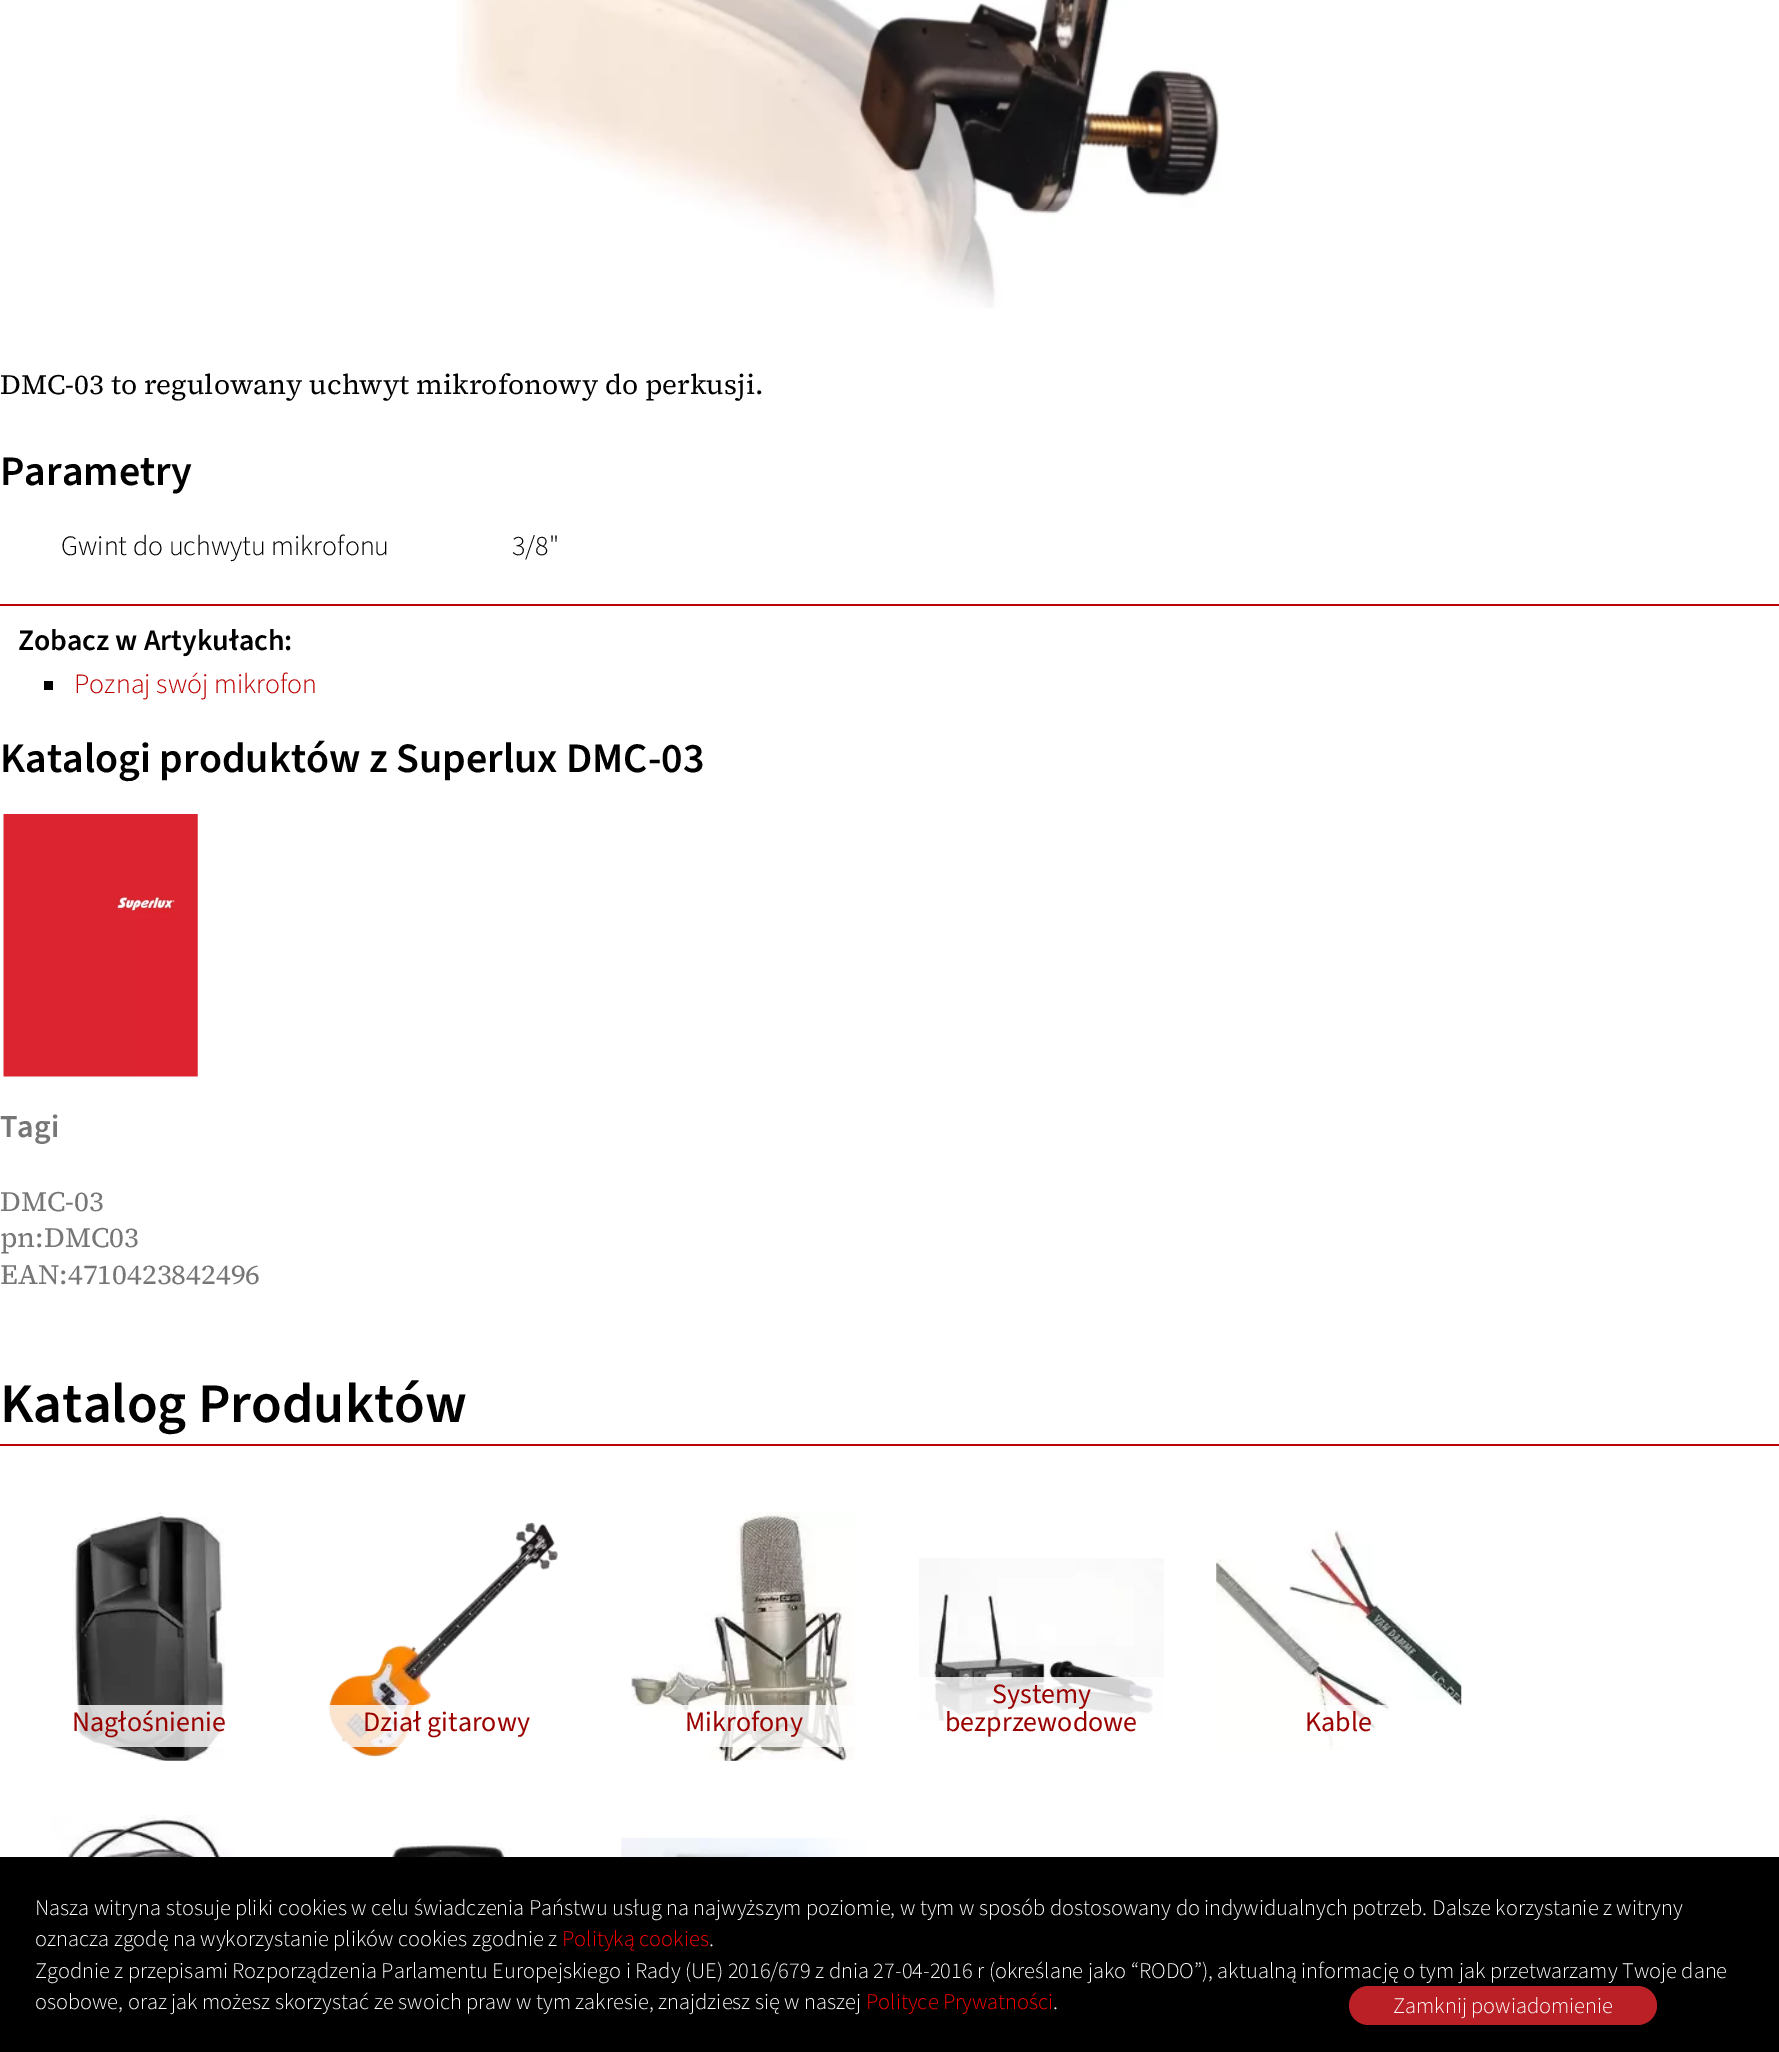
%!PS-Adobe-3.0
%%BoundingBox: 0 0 1779 2052
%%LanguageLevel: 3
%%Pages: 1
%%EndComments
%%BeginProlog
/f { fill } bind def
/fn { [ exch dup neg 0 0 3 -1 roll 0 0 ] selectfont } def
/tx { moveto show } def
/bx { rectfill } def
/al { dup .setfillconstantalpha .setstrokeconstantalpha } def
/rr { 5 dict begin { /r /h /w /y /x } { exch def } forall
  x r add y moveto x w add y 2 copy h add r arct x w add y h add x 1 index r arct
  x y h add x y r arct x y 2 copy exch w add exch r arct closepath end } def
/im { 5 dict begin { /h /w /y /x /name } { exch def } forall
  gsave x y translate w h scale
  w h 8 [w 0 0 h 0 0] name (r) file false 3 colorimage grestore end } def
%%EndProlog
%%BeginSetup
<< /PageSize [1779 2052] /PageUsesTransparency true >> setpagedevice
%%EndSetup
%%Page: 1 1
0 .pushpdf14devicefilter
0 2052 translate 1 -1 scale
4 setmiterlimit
1 setgray
0 0 1779 2052 bx
(image0.raw) 457 0 763 309 im
/SourceSerif4-Regular 28 fn
0 setgray
(DMC-03 to regulowany uchwyt mikrofonowy do perkusji.) 0 394 tx
/SourceSans3-ExtraLight 42 fn
(Parametry) 0 485 tx
/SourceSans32-ExtraLight 28 fn
(Gwint do uchwytu mikrofonu) 61 555 tx
(3/8") 512 555 tx
0.737 0 0 setrgbcolor
0 604 1779 2 bx
/SourceSans3-ExtraLight 29.75 fn
0 setgray
(Zobacz w Artykułach:) 18 650 tx
44 681 9 9 bx
/SourceSans32-ExtraLight 28 fn
0.737 0 0 setrgbcolor
(Poznaj swój mikrofon) 74 693 tx
/SourceSans3-ExtraLight 42 fn
0 setgray
(Katalogi produktów z Superlux DMC-03) 0 772 tx
(image1.raw) 3 814 195 263 im
/SourceSans3-ExtraLight 32 fn
0.463 setgray
(Tagi) 0 1137 tx
/SourceSerif4-Regular 28 fn
(DMC-03) 0 1211 tx
(pn:DMC03) 0 1247 tx
(EAN:4710423842496) 0 1284 tx
0.737 0 0 setrgbcolor
0 1444 1779 2 bx
/SourceSans3-ExtraLight 56 fn
0 setgray
(Katalog Produktów) 0 1422 tx
(image2.raw) 72 1512 153 249 im
0.8 al
1 setgray
76 1705 148 42 bx
/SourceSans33-ExtraLight 28 fn
1 al
0.608 0 0 setrgbcolor
(Nagłośnienie) 72 1731 tx
(image3.raw) 328 1522 230 235 im
0.8 al
1 setgray
328 1705 89 42 bx
1 al
0.608 0 0 setrgbcolor
(Dział gitarowy) 363 1731 tx
(image4.raw) 631 1512 224 249 im
0.8 al
1 setgray
636 1705 219 42 bx
1 al
0.608 0 0 setrgbcolor
(Mikrofony) 685 1731 tx
(image5.raw) 919 1558 245 163 im
0.8 al
1 setgray
919 1677 245 44 bx
1 al
0.608 0 0 setrgbcolor
(Systemy) 992 1703 tx
(bezprzewodowe) 945 1731 tx
(image6.raw) 1216 1529 246 221 im
0.8 al
1 setgray
1320 1705 142 42 bx
1 al
0.608 0 0 setrgbcolor
(Kable) 1305 1731 tx
(image7.raw) 50 1815 190 42 im
(image8.raw) 383 1843 128 14 im
(image9.raw) 621 1837 245 20 im
0 setgray
0 1857 1779 195 bx
/SourceSans32-ExtraLight 22.4 fn
1 setgray
(Nasza witryna stosuje pliki cookies w celu świadczenia Państwu usług na najwyższym poziomie, w tym w sposób dostosowany do indywidualnych potrzeb.) 35 1915 tx
(Dalsze korzystanie z witryny) 1432 1915 tx
(oznacza zgodę na wykorzystanie plików cookies zgodnie z) 35 1946 tx
0.98 0 0 setrgbcolor
(Polityką cookies) 562 1946 tx
1 setgray
(.) 709 1946 tx
(Zgodnie z przepisami Rozporządzenia Parlamentu Europejskiego i Rady \(UE\) 2016/679 z dnia 27-04-2016 r \(określane jako “RODO”\), aktualną informację o tym jak przetwarzamy Twoje dane) 35 1978 tx
(osobowe, oraz jak możesz skorzystać ze swoich praw w tym zakresie, znajdziesz się w naszej) 35 2009 tx
0.98 0 0 setrgbcolor
(Polityce Prywatności) 866 2009 tx
1 setgray
(.) 1053 2009 tx
0.729 0.125 0.145 setrgbcolor
1349 1986 308 39 19.5 rr f
1 setgray
(Zamknij powiadomienie) 1393 2013 tx
.poppdf14devicefilter showpage
%%EOF
